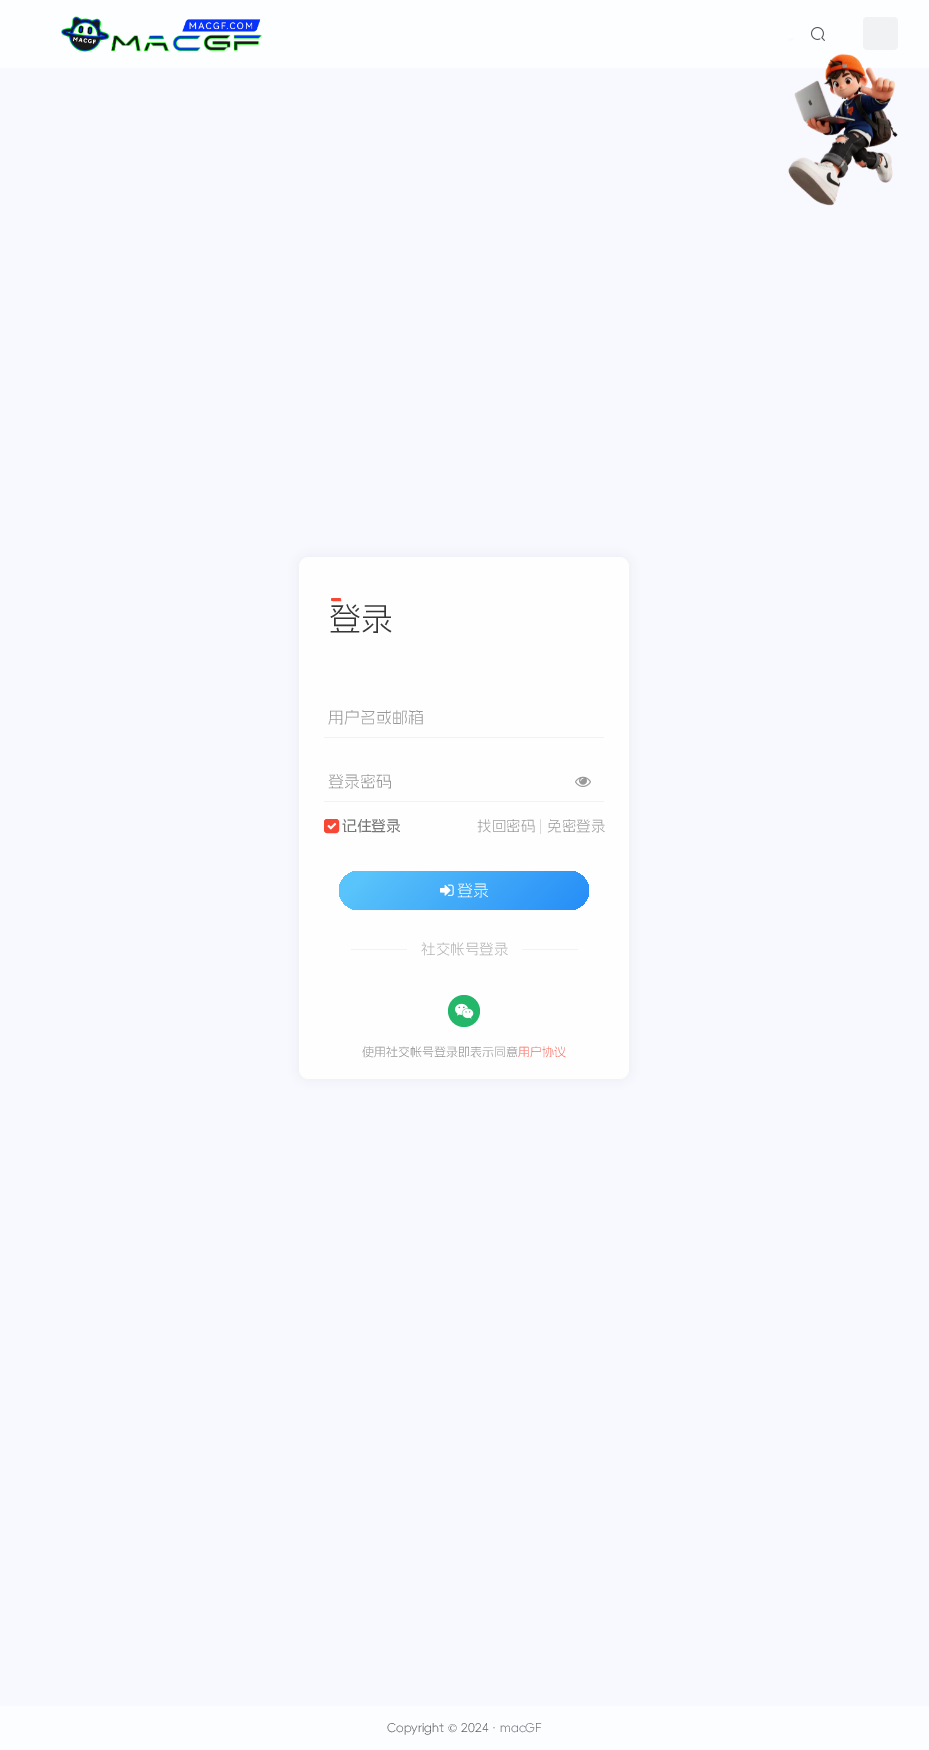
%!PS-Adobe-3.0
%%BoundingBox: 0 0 929 1750
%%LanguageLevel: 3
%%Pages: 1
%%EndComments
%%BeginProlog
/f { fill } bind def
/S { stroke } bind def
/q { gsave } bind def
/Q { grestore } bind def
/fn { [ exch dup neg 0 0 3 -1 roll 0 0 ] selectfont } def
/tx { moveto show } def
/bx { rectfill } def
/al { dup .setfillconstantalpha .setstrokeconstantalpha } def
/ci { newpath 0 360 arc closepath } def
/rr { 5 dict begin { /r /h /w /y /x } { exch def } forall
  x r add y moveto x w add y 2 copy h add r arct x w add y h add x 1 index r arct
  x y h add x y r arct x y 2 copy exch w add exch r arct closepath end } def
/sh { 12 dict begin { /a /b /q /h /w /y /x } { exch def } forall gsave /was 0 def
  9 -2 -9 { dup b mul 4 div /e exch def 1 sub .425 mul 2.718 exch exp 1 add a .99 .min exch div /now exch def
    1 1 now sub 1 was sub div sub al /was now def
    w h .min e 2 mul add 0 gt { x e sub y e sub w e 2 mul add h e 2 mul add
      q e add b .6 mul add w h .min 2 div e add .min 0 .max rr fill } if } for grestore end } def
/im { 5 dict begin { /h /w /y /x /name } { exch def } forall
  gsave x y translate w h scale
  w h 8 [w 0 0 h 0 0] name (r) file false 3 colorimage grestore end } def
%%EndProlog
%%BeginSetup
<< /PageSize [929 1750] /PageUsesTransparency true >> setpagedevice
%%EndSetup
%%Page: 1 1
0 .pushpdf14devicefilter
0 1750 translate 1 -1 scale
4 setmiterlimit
0.969 0.976 0.996 setrgbcolor
0 0 929 1750 bx
0.992 0.996 1 setrgbcolor
0 0 929 68 bx
(image0.raw) 61 16 201 36 im
(image1.raw) 811 27 14 14 im
0.945 0.949 0.953 setrgbcolor
863 17 35 33 4 rr f
(image2.raw) 788 38 110 168 im
0.455 setgray
299 557 330 522 10 5 0.08 sh
0.996 0.996 1 setrgbcolor
299 557 330 522 10 rr f
0.969 0.278 0.208 setrgbcolor
333 600 8 1 0.5 0.5 1 sh
331 598 10 3 1.5 rr f
/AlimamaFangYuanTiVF-Light 32 fn
0.212 setgray
(登录) 329 630 tx
/AlimamaFangYuanTiVF-Light 16 fn
0.6 setgray
(用户名或邮箱) 328 723 tx
0.949 0.949 0.953 setrgbcolor
324 737 280 1 bx
0.6 setgray
(登录密码) 328 787 tx
(image3.raw) 575 776 16 11 im
0.949 0.949 0.953 setrgbcolor
324 801 280 1 bx
0.969 0.278 0.208 setrgbcolor
324.5 819.5 14 13 2.5 rr q f Q
S
(image4.raw) 327 822 10 8 im
/AlimamaFangYuanTiVF-Bold 14.5 fn
0.467 setgray
(记住登录) 342 831 tx
/AlimamaFangYuanTiVF-Light 14.5 fn
0.6 setgray
(找回密码) 477 831 tx
0.8 setgray
(|) 539 831 tx
0.6 setgray
(免密登录) 547 831 tx
q 339 871 250 39 19.5 rr clip newpath
<< /ShadingType 2 /ColorSpace /DeviceRGB /Coords [392 818 536 963] /Extend [true true] /Function << /FunctionType 3 /Domain [0 1] /Functions [<< /FunctionType 2 /Domain [0 1] /C0 [0.349 0.765 0.984] /C1 [0.349 0.765 0.984] /N 1 >> << /FunctionType 2 /Domain [0 1] /C0 [0.349 0.765 0.984] /C1 [0.149 0.553 0.969] /N 1 >>] /Bounds [0.1] /Encode [0 1 0 1] >> >> shfill Q
(image5.raw) 440 884 14 12 im
/AlimamaFangYuanTiVF-Light 16 fn
1 setgray
(登录) 457 896 tx
0.949 0.949 0.953 setrgbcolor
351 949 56 1 bx
/AlimamaFangYuanTiVF-Light 14.5 fn
0.694 setgray
(社交帐号登录) 421 954 tx
0.949 0.949 0.953 setrgbcolor
522 949 56 1 bx
0.141 0.718 0.416 setrgbcolor
464 1011 16 ci f
(image6.raw) 455 1003 19 16 im
/AlimamaFangYuanTiVF-Light 12 fn
0.573 setgray
(使用社交帐号登录即表示同意) 362 1056 tx
0.973 0.424 0.365 setrgbcolor
(用户协议) 518 1056 tx
0.988 0.992 1 setrgbcolor
0 1706 929 44 bx
0.365 0.365 0.369 setrgbcolor
(Copyright) 387 1732 tx
/LiberationSerif-Regular 12 fn
(©) 448 1732 tx
/AlimamaFangYuanTiVF-Light 12 fn
(2024 ·) 461 1732 tx
0.439 0.455 0.475 setrgbcolor
(macGF) 500 1732 tx
.poppdf14devicefilter showpage
%%EOF
